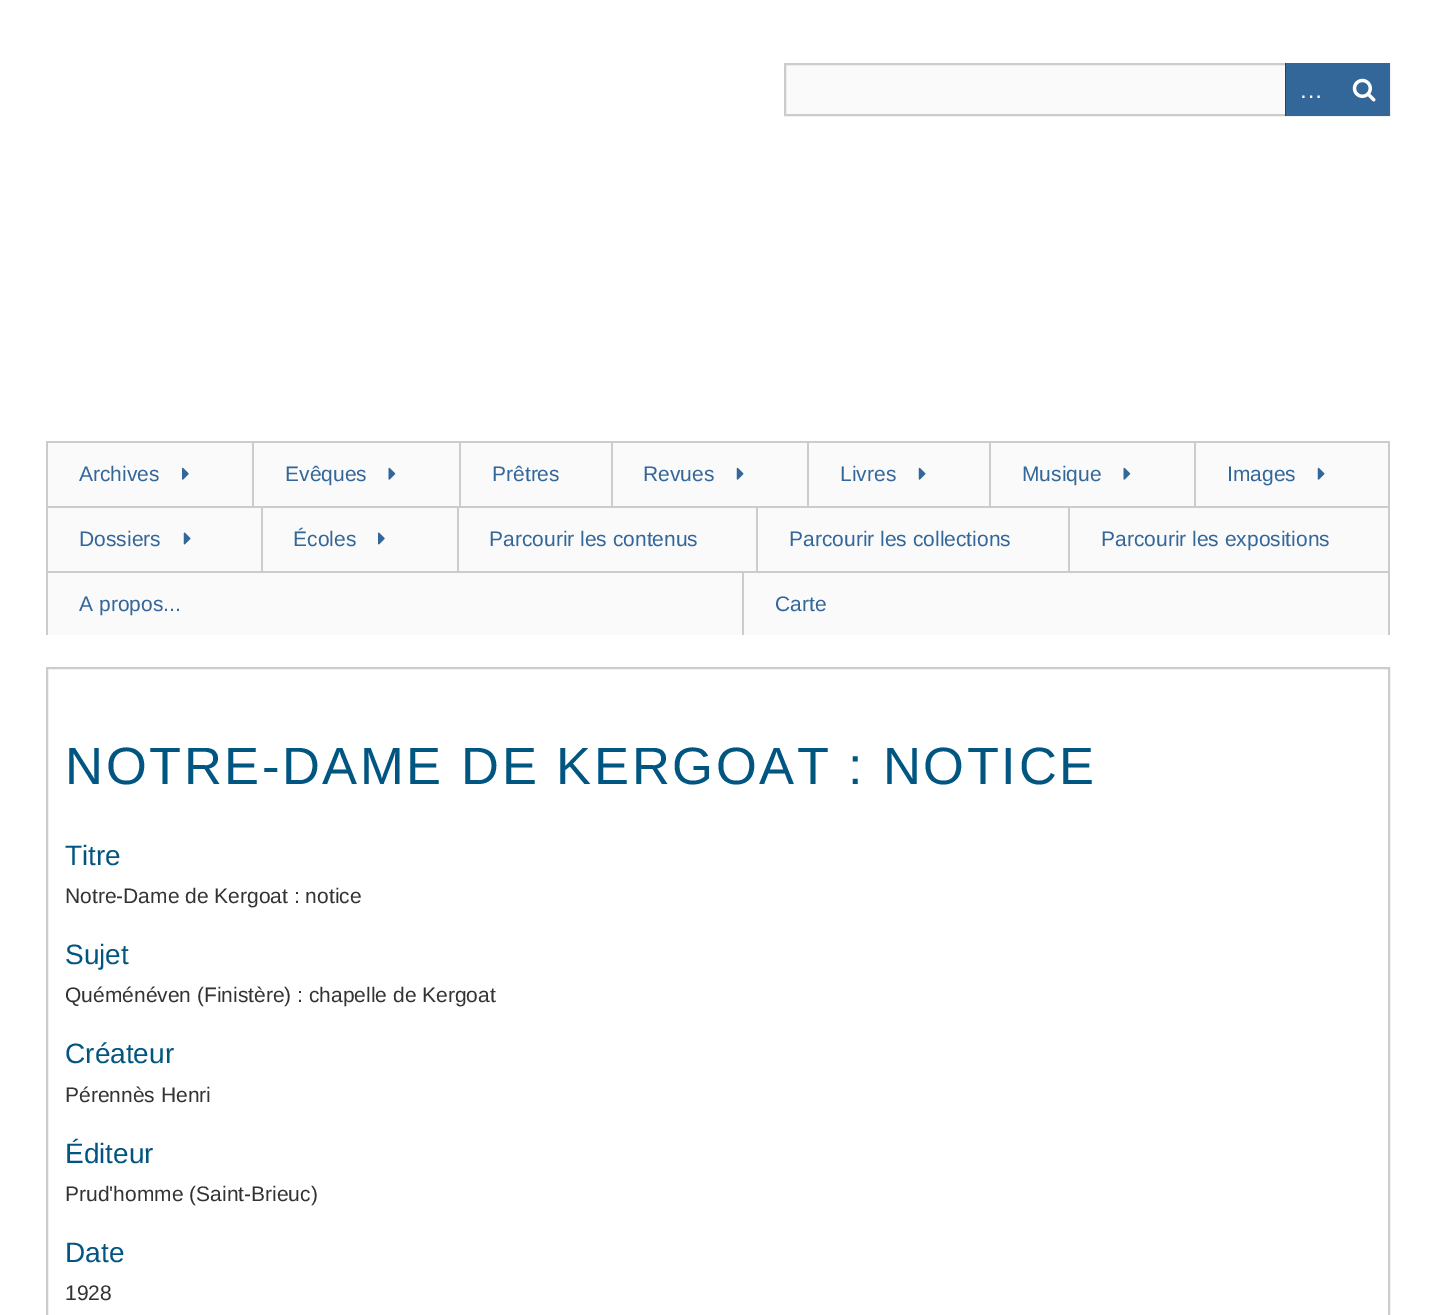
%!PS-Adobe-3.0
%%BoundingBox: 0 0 1435 1315
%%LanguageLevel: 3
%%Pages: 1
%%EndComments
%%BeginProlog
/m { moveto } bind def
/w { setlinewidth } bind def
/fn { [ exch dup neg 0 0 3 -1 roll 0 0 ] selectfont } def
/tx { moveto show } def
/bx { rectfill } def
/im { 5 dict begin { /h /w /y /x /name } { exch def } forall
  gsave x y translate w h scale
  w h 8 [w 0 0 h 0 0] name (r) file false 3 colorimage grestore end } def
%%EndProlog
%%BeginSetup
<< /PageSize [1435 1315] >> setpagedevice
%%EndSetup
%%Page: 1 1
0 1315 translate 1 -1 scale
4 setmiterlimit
1 setgray
0 0 1435 1315 bx
0.98 setgray
786 65 499 49 bx
0.8 setgray
2 w
785 64 604 51 rectstroke
0 0.318 0.467 setrgbcolor
1285 63 1 53 bx
0.2 0.4 0.6 setrgbcolor
1286 63 104 53 bx
/LiberationSans-Regular 24 fn
1 setgray
(…) 1299 98 tx
(image0.raw) 1352 78 24 24 im
0.8 setgray
1388 441 2 194 bx
0.98 setgray
48 443 204 63 bx
0.8 setgray
46 441 1342 2 bx
46 441 2 65 bx
/LiberationSans-Regular 21 fn
0.2 0.4 0.6 setrgbcolor
(Archives) 79 481 tx
(image1.raw) 182 467 7 13 im
0.98 setgray
254 443 205 63 bx
0.8 setgray
252 441 2 65 bx
0.2 0.4 0.6 setrgbcolor
(Evêques) 285 481 tx
(image2.raw) 388 467 8 13 im
0.98 setgray
461 443 150 63 bx
0.8 setgray
459 441 2 65 bx
0.2 0.4 0.6 setrgbcolor
(Prêtres) 492 481 tx
0.98 setgray
613 443 194 63 bx
0.8 setgray
611 441 2 65 bx
0.2 0.4 0.6 setrgbcolor
(Revues) 643 481 tx
(image3.raw) 736 467 8 13 im
0.98 setgray
809 443 180 63 bx
0.8 setgray
807 441 2 65 bx
0.2 0.4 0.6 setrgbcolor
(Livres) 840 481 tx
(image3.raw) 918 467 8 13 im
0.98 setgray
991 443 203 63 bx
0.8 setgray
989 441 2 65 bx
0.2 0.4 0.6 setrgbcolor
(Musique) 1022 481 tx
(image2.raw) 1123 467 8 13 im
0.98 setgray
1196 443 192 63 bx
0.8 setgray
1194 441 2 65 bx
0.2 0.4 0.6 setrgbcolor
(Images) 1227 481 tx
(image3.raw) 1317 467 8 13 im
0.98 setgray
48 508 213 63 bx
0.8 setgray
46 506 1342 2 bx
46 506 2 65 bx
0.2 0.4 0.6 setrgbcolor
(Dossiers) 79 546 tx
(image4.raw) 183 532 8 13 im
0.98 setgray
263 508 194 63 bx
0.8 setgray
261 506 2 65 bx
0.2 0.4 0.6 setrgbcolor
(Écoles) 293 546 tx
(image5.raw) 378 532 7 13 im
0.98 setgray
459 508 297 63 bx
0.8 setgray
457 506 2 65 bx
0.2 0.4 0.6 setrgbcolor
(Parcourir les contenus) 489 546 tx
0.98 setgray
758 508 310 63 bx
0.8 setgray
756 506 2 65 bx
0.2 0.4 0.6 setrgbcolor
(Parcourir les collections) 789 546 tx
0.98 setgray
1070 508 318 63 bx
0.8 setgray
1068 506 2 65 bx
0.2 0.4 0.6 setrgbcolor
(Parcourir les expositions) 1101 546 tx
0.98 setgray
48 573 694 62 bx
0.8 setgray
46 571 1342 2 bx
46 571 2 64 bx
0.2 0.4 0.6 setrgbcolor
(A propos...) 79 611 tx
0.98 setgray
744 573 644 62 bx
0.8 setgray
742 571 2 64 bx
0.2 0.4 0.6 setrgbcolor
(Carte) 775 611 tx
0.8 setgray
47 668 1342 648 rectstroke
/LiberationSans-Regular 52.5 fn
0.004 0.333 0.506 setrgbcolor
65 784 m 2.6 0 (NOTRE-DAME DE KERGOAT : NOTICE) ashow
/LiberationSans-Regular 28 fn
(Titre) 65 865 tx
/LiberationSans-Regular 21 fn
0.2 setgray
(Notre-Dame de Kergoat : notice) 65 903 tx
/LiberationSans-Regular 28 fn
0.004 0.333 0.506 setrgbcolor
(Sujet) 65 964 tx
/LiberationSans-Regular 21 fn
0.2 setgray
(Quéménéven \(Finistère\) : chapelle de Kergoat) 65 1002 tx
/LiberationSans-Regular 28 fn
0.004 0.333 0.506 setrgbcolor
(Créateur) 65 1063 tx
/LiberationSans-Regular 21 fn
0.2 setgray
(Pérennès Henri) 65 1102 tx
/LiberationSans-Regular 28 fn
0.004 0.333 0.506 setrgbcolor
(Éditeur) 65 1163 tx
/LiberationSans-Regular 21 fn
0.2 setgray
(Prud'homme \(Saint-Brieuc\)) 65 1201 tx
/LiberationSans-Regular 28 fn
0.004 0.333 0.506 setrgbcolor
(Date) 65 1262 tx
/LiberationSans-Regular 21 fn
0.2 setgray
(1928) 65 1300 tx
showpage
%%EOF
